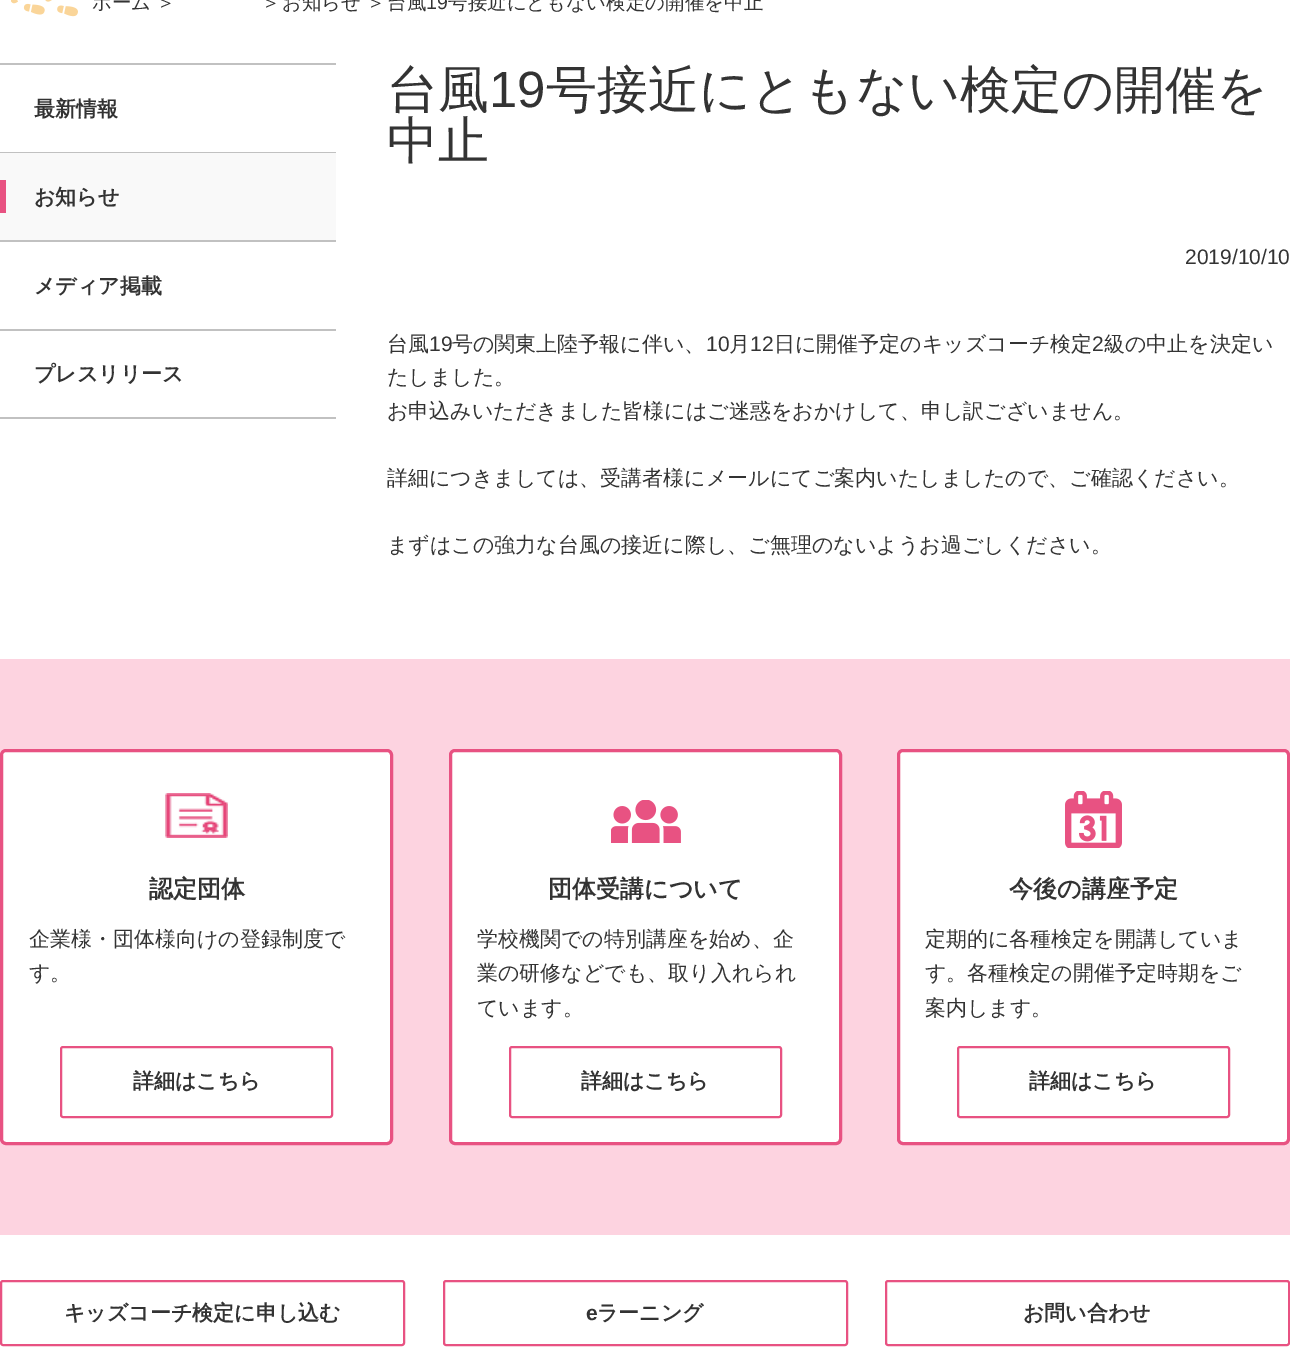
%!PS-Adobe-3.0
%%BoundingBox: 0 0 1290 1358
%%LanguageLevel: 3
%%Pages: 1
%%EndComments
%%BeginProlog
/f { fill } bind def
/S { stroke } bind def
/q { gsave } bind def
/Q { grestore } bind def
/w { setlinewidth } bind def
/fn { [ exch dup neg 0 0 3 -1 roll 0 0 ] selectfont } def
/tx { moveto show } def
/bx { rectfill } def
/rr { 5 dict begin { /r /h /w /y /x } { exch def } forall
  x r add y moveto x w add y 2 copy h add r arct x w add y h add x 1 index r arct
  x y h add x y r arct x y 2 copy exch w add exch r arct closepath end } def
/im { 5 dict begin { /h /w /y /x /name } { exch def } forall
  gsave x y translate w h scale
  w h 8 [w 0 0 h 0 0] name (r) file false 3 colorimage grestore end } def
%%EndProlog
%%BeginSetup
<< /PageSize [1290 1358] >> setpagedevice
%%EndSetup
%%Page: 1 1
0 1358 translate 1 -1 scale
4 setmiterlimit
1 setgray
0 0 1290 1358 bx
(image0.raw) 11 0 67 17 im
/WenQuanYiZenHei-Medium 19.5 fn
0.2 setgray
(ホーム) 92 9 tx
(＞) 156 9 tx
(＞) 261 9 tx
(お知らせ) 282 9 tx
(＞) 366 9 tx
(台風) 387 9 tx
/LiberationSans-Regular 19.5 fn
(19) 426 9 tx
/WenQuanYiZenHei-Medium 19.5 fn
(号接近にともない検定の開催を中止) 448 9 tx
0.757 setgray
0 63 336 2 bx
0 152 336 1 bx
/WenQuanYiZenHei-Bold 21 fn
0.2 setgray
(最新情報) 34 116 tx
0.757 setgray
0 240 336 2 bx
0.976 setgray
0 153 336 87 bx
0.91 0.322 0.51 setrgbcolor
0 180 6 33 bx
0.2 setgray
(お知らせ) 34 204 tx
0.757 setgray
0 329 336 2 bx
0.2 setgray
(メディア掲載) 34 293 tx
0.757 setgray
0 417 336 2 bx
0.2 setgray
(プレスリリース) 34 381 tx
/WenQuanYiZenHei-Medium 51 fn
(台風) 387 107 tx
/LiberationSans-Regular 51 fn
(19) 489 107 tx
/WenQuanYiZenHei-Medium 51 fn
(号接近にともない検定の開催を) 546 107 tx
(中止) 387 158 tx
/LiberationSans-Regular 21 fn
(2019/10/10) 1185 264 tx
/WenQuanYiZenHei-Medium 21 fn
(台風) 387 351 tx
/LiberationSans-Regular 21 fn
(19) 429 351 tx
/WenQuanYiZenHei-Medium 21 fn
(号の関東上陸予報に伴い、) 452 351 tx
/LiberationSans-Regular 21 fn
(10) 706 351 tx
/WenQuanYiZenHei-Medium 21 fn
(月) 729 351 tx
/LiberationSans-Regular 21 fn
(12) 750 351 tx
/WenQuanYiZenHei-Medium 21 fn
(日に開催予定のキッズコーチ検定) 774 351 tx
/LiberationSans-Regular 21 fn
(2) 1092 351 tx
/WenQuanYiZenHei-Medium 21 fn
(級の中止を決定い) 1104 351 tx
(たしました。) 387 384 tx
(お申込みいただきました皆様にはご迷惑をおかけして、申し訳ございません。) 387 418 tx
(詳細につきましては、受講者様にメールにてご案内いたしましたので、ご確認ください。) 387 485 tx
(まずはこの強力な台風の接近に際し、ご無理のないようお過ごしください。) 387 552 tx
0.992 0.827 0.878 setrgbcolor
0 659 1290 576 bx
1 setgray
1.5 750.5 390 393 4.5 rr q f Q
0.91 0.322 0.51 setrgbcolor
3 w
S
(image1.raw) 165 793 63 45 im
/WenQuanYiZenHei-Bold 24 fn
0.2 setgray
(認定団体) 149 897 tx
/WenQuanYiZenHei-Medium 21 fn
(企業様・団体様向けの登録制度で) 29 946 tx
(す。) 29 980 tx
0.91 0.322 0.51 setrgbcolor
2 w
61 1047 271 70 2 rr S
/WenQuanYiZenHei-Bold 21 fn
0.2 setgray
(詳細はこちら) 133 1088 tx
1 setgray
450.5 750.5 390 393 4.5 rr q f Q
0.91 0.322 0.51 setrgbcolor
3 w
S
(image2.raw) 611 800 70 43 im
/WenQuanYiZenHei-Bold 24 fn
0.2 setgray
(団体受講について) 548 897 tx
/WenQuanYiZenHei-Medium 21 fn
(学校機関での特別講座を始め、企) 477 946 tx
(業の研修などでも、取り入れられ) 477 980 tx
(ています。) 477 1015 tx
0.91 0.322 0.51 setrgbcolor
2 w
510 1047 271 70 2 rr S
/WenQuanYiZenHei-Bold 21 fn
0.2 setgray
(詳細はこちら) 581 1088 tx
1 setgray
898.5 750.5 390 393 4.5 rr q f Q
0.91 0.322 0.51 setrgbcolor
3 w
S
(image3.raw) 1065 791 57 57 im
/WenQuanYiZenHei-Bold 24 fn
0.2 setgray
(今後の講座予定) 1009 897 tx
/WenQuanYiZenHei-Medium 21 fn
(定期的に各種検定を開講していま) 925 946 tx
(す。各種検定の開催予定時期をご) 925 980 tx
(案内します。) 925 1015 tx
0.91 0.322 0.51 setrgbcolor
2 w
958 1047 271 70 2 rr S
/WenQuanYiZenHei-Bold 21 fn
0.2 setgray
(詳細はこちら) 1029 1088 tx
0.91 0.322 0.51 setrgbcolor
1 1281 403 64 2 rr S
0.2 setgray
(キッズコーチ検定に申し込む) 64 1320 tx
0.91 0.322 0.51 setrgbcolor
444 1281 403 64 2 rr S
/LiberationSans-Bold 21 fn
0.2 setgray
(e) 586 1320 tx
/WenQuanYiZenHei-Bold 21 fn
(ラーニング) 597 1320 tx
0.91 0.322 0.51 setrgbcolor
886 1281 403 64 2 rr S
0.2 setgray
(お問い合わせ) 1023 1320 tx
showpage
%%EOF
